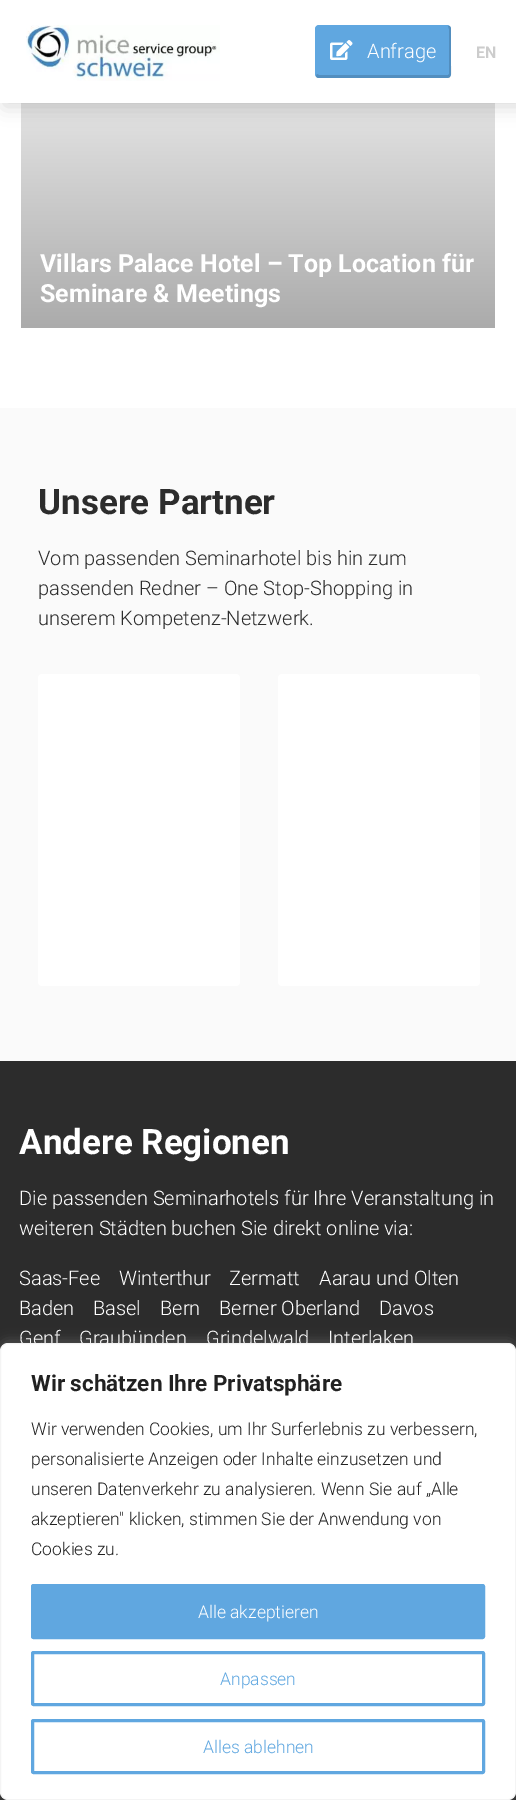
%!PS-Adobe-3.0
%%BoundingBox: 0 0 516 1800
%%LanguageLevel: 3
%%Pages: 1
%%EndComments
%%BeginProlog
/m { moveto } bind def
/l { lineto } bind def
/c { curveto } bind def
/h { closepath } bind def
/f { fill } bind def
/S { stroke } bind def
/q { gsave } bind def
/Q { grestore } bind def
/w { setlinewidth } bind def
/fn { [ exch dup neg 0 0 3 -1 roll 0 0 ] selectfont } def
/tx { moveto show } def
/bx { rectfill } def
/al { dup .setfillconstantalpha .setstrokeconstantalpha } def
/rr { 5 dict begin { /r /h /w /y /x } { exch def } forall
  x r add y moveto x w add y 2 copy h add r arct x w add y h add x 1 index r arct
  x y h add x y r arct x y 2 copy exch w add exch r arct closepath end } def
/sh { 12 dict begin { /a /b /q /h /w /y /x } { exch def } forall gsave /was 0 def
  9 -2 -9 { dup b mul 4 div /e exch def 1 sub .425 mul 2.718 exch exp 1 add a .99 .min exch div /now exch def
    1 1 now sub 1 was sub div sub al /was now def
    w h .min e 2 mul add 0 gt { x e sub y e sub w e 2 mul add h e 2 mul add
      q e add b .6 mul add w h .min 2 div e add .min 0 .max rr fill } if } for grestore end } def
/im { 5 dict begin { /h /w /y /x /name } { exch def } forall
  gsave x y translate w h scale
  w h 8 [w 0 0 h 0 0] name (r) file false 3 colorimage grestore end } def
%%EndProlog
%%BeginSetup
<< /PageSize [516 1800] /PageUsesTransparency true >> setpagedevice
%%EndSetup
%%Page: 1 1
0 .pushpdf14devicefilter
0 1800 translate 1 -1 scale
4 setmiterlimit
1 setgray
0 0 516 1800 bx
q 21 103 m 495 103 l 495 328 l 21 328 l h clip newpath
<< /ShadingType 2 /ColorSpace /DeviceRGB /Coords [258 328 258 -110] /Extend [true true] /Function << /FunctionType 3 /Domain [0 1] /Functions [<< /FunctionType 2 /Domain [0 1] /C0 [0.671 0.671 0.671] /C1 [0.953 0.953 0.953] /N 1 >> << /FunctionType 2 /Domain [0 1] /C0 [0.953 0.953 0.953] /C1 [0.953 0.953 0.953] /N 1 >>] /Bounds [0.66] /Encode [0 1 0 1] >> >> shfill Q
0 setgray
4 4 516 102 0 9.5 0.15 sh
1 setgray
0 0 516 103 bx
(image0.raw) 26 25 194 56 im
0.376 0.655 0.878 setrgbcolor
315 25 136 53 4 rr f
0.15 al
0 setgray
450 26 m 451 28 l 451 66 l 451 68 452 74 450 77 c 448 75 l 449 74 l 449 29 l 448 26 l h f
317 78 m 316 76 l 317 74 l 319 75 l 448 75 l 450 77 l 450 78 l h f
1 al
(image1.raw) 330 40 23 20 im
/Roboto-Light 20 fn
1 setgray
(Anfrage) 367 58 tx
/Roboto-Bold 16 fn
0.8 setgray
(EN) 476 58 tx
/Roboto-Bold 25 fn
1 setgray
(Villars Palace Hotel – Top Location für) 40 272 tx
(Seminare & Meetings) 40 302 tx
0.98 setgray
0 408 516 653 bx
/Roboto-Bold 35 fn
0.173 setgray
(Unsere Partner) 38 514 tx
/Roboto-Light 20 fn
(Vom passenden Seminarhotel bis hin zum) 38 565 tx
(passenden Redner – One Stop-Shopping in) 38 595 tx
(unserem Kompetenz-Netzwerk.) 38 625 tx
1 setgray
38 674 202 312 4 rr f
278 674 202 312 4 rr f
0.173 setgray
0 1061 516 739 bx
/Roboto-Bold 35 fn
1 setgray
(Andere Regionen) 19 1154 tx
/Roboto-Light 20 fn
(Die passenden Seminarhotels für Ihre Veranstaltung in) 19 1205 tx
(weiteren Städten buchen Sie direkt online via:) 19 1235 tx
(Saas-Fee) 19 1285 tx
(Winterthur) 119 1285 tx
(Zermatt) 229 1285 tx
(Aarau und Olten) 319 1285 tx
(Baden) 19 1315 tx
(Basel) 93 1315 tx
(Bern) 160 1315 tx
(Berner Oberland) 219 1315 tx
(Davos) 379 1315 tx
(Genf) 19 1345 tx
(Graubünden) 79 1345 tx
(Grindelwald) 206 1345 tx
(Interlaken) 328 1345 tx
0.675 0.671 0.671 setrgbcolor
0 1341 516 458 8 6 0.3 sh
1 setgray
0.5 1343.5 515 456 7.5 rr q f Q
0.957 setgray
S
/Roboto-Bold 22.5 fn
0.129 setgray
(Wir schätzen Ihre Privatsphäre) 31 1391 tx
/Roboto-Light 17.5 fn
(Wir verwenden Cookies, um Ihr Surferlebnis zu verbessern,) 31 1435 tx
(personalisierte Anzeigen oder Inhalte einzusetzen und) 31 1465 tx
(unseren Datenverkehr zu analysieren. Wenn Sie auf „Alle) 31 1495 tx
(akzeptieren" klicken, stimmen Sie der Anwendung von) 31 1525 tx
(Cookies zu.) 31 1555 tx
0.376 0.655 0.878 setrgbcolor
32.5 1585.5 451 52 1 rr q f Q
3 w
S
1 setgray
(Alle akzeptieren) 198 1618 tx
0.376 0.655 0.878 setrgbcolor
32.5 1652.5 451 52 1 rr S
(Anpassen) 220 1685 tx
32.5 1720.5 451 52 1 rr S
(Alles ablehnen) 203 1753 tx
.poppdf14devicefilter showpage
%%EOF
